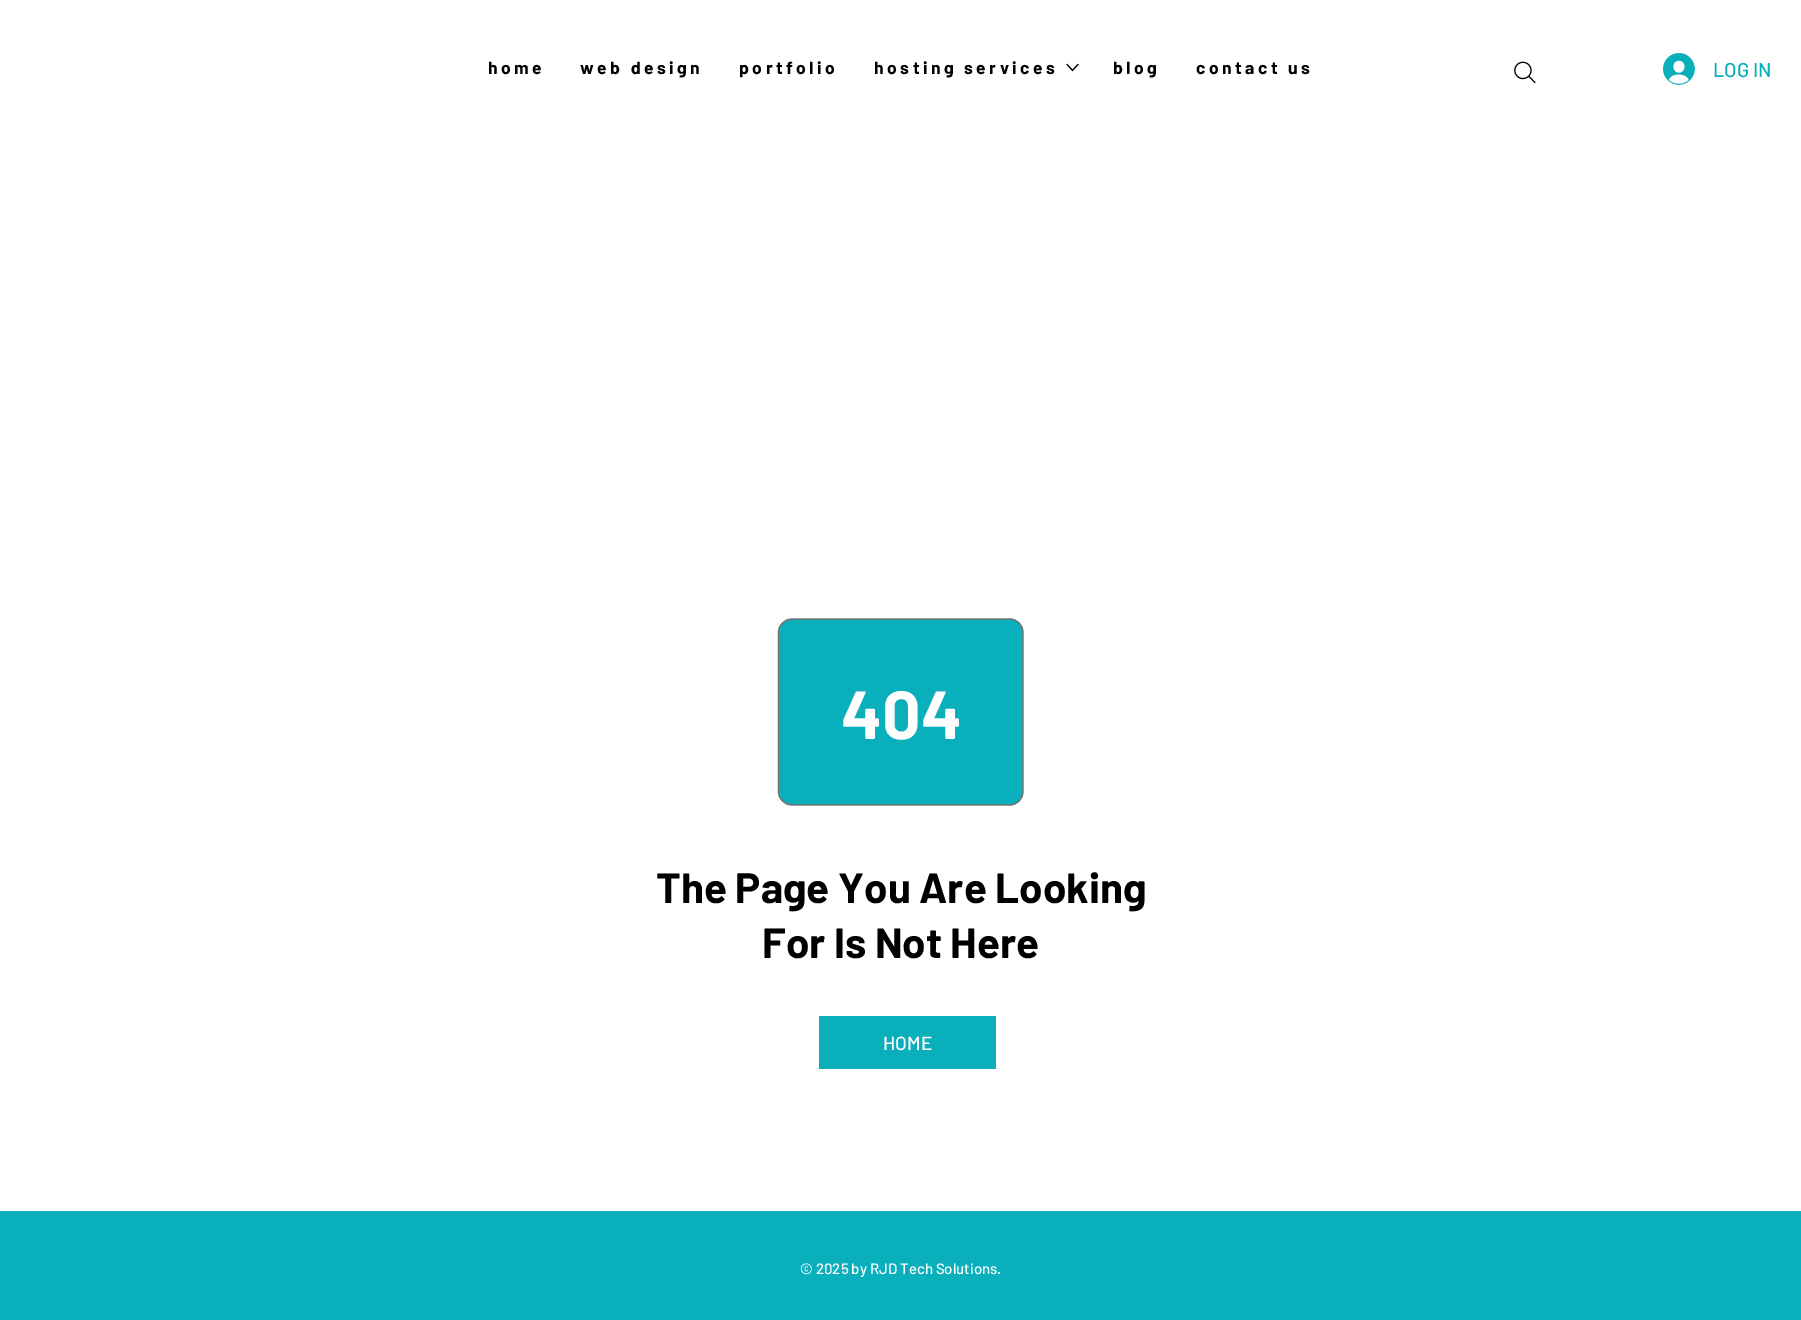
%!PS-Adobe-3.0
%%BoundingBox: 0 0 1801 1320
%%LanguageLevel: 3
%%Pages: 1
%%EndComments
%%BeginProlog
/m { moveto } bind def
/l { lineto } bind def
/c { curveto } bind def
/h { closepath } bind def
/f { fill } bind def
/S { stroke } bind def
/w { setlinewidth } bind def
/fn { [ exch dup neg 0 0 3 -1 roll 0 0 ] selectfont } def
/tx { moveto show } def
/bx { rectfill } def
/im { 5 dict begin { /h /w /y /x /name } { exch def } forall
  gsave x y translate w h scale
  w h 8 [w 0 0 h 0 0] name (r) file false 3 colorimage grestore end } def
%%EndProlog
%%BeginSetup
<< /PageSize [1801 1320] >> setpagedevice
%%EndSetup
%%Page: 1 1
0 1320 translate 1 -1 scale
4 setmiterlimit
1 setgray
0 0 1801 1320 bx
/Barlow-Bold 17.5 fn
0 setgray
488 74 m 3.5 0 (home) ashow
580 74 m 3.5 0 (web design) ashow
739 74 m 3.5 0 (portfolio) ashow
874 74 m 3.5 0 (hosting services) ashow
(image0.raw) 1066 63 13 9 im
1113 74 m 3.5 0 (blog) ashow
1196 74 m 3.5 0 (contact us) ashow
(image1.raw) 1514 61 22 23 im
(image2.raw) 1663 53 32 32 im
/Barlow-Medium 20 fn
0.039 0.686 0.737 setrgbcolor
(LOG IN) 1713 77 tx
1010 805 m 792 805 l 785 805 779 799 779 792 c 779 632 l 779 625 785 619 792 619 c 1010 619 l 1017 619 1023 625 1023 632 c 1023 792 l 1023 799 1017 805 1010 805 c h f
0.459 setgray
1.2 w
1010 805 m 792 805 l 784.5 805 778.5 799 778.5 792 c 778.5 632 l 778.5 625 784.5 619 792 619 c 1010 619 l 1017 619 1023 625 1023 632 c 1023 792 l 1023 799 1017 805 1010 805 c h S
/Barlow-Bold 68 fn
1 setgray
(404) 841 739 tx
/Barlow-Bold 42.25 fn
0 setgray
(The Page You Are Looking) 656 903 tx
(For Is Not Here) 762 958 tx
0.039 0.686 0.737 setrgbcolor
819 1016 177 53 bx
/Barlow-Medium 19 fn
1 setgray
(HOME) 883 1050 tx
0.039 0.686 0.737 setrgbcolor
0 1211 1801 109 bx
/Barlow-Medium 15 fn
1 setgray
(© 2025 by RJD Tech Solutions.) 800 1274 tx
showpage
%%EOF
